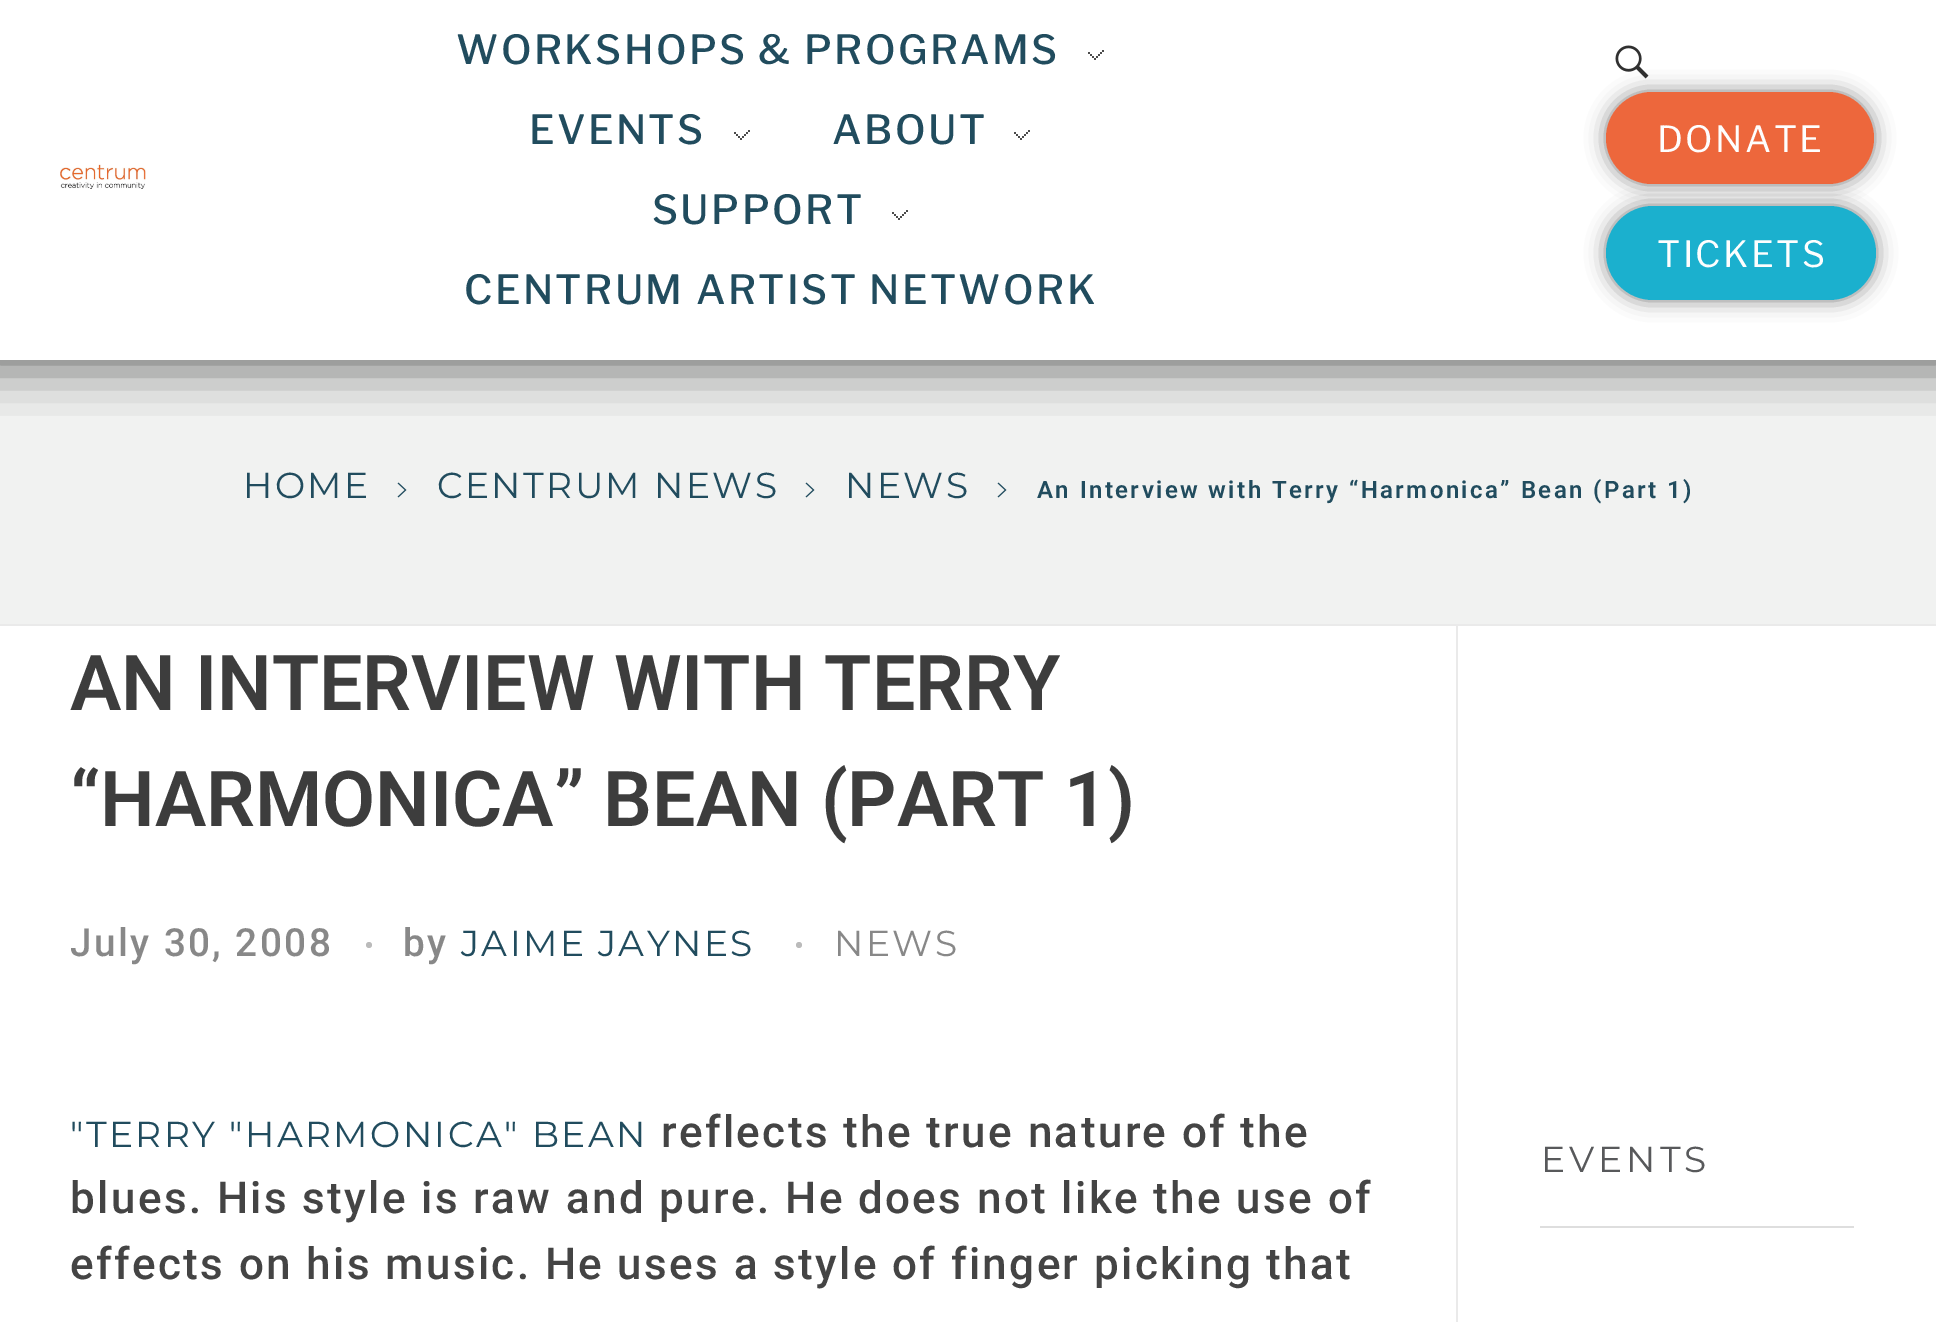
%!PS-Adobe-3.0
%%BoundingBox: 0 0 1936 1322
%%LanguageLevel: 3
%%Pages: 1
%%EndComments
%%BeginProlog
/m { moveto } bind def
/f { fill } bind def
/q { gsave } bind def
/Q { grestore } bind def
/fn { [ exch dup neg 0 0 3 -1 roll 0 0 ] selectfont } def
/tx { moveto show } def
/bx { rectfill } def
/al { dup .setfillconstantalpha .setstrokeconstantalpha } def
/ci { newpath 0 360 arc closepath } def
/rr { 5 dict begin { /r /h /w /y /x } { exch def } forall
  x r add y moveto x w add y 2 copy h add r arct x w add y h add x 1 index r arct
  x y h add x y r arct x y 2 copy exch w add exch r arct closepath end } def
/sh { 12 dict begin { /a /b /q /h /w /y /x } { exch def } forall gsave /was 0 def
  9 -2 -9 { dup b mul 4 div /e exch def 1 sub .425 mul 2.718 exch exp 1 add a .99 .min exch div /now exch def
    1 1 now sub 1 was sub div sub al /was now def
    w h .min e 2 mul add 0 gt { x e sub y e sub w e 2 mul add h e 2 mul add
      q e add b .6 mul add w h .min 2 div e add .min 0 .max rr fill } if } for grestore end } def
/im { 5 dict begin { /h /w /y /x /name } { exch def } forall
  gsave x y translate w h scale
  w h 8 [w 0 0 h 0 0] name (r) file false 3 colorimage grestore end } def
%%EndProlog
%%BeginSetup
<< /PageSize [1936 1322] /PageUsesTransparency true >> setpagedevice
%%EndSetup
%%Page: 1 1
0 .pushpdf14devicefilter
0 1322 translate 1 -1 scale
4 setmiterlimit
1 setgray
0 0 1936 1322 bx
0.945 0.949 0.945 setrgbcolor
0 360 1936 264 bx
q
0 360 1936 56 rectclip
0 setgray
-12 -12 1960 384 0 25 0.5 sh
Q
(image0.raw) 60 164 86 25 im
/LibreFranklin-Medium 40 fn
0.129 0.298 0.369 setrgbcolor
456 64 m 2.4 0 (WORKSHOPS & PROGRAMS) ashow
(image1.raw) 1088 50 16 10 im
529 144 m 2.4 0 (EVENTS) ashow
(image1.raw) 734 130 16 10 im
832 144 m 2.4 0 (ABOUT) ashow
(image1.raw) 1014 130 16 10 im
652 224 m 2.4 0 (SUPPORT) ashow
(image1.raw) 892 210 16 10 im
464 304 m 2.4 0 (CENTRUM ARTIST NETWORK) ashow
(image2.raw) 1615 45 34 34 im
0 setgray
1606 92 268 92 46 10 0.5 sh
0.929 0.404 0.235 setrgbcolor
1606 92 268 92 46 rr f
/LibreFranklin-Regular 36 fn
0.996 setgray
1657 152 m 2.4 0 (DONATE) ashow
0 setgray
1606 206 270 94 47 10 0.5 sh
0.106 0.69 0.808 setrgbcolor
1606 206 270 94 47 rr f
0.996 setgray
1657 267 m 2.4 0 (TICKETS) ashow
0.918 setgray
0 624 1936 2 bx
/Montserrat-Regular 36 fn
0.129 0.298 0.369 setrgbcolor
243 498 m 2.4 0 (HOME) ashow
(image3.raw) 397 482 10 16 im
437 498 m 2.4 0 (CENTRUM NEWS) ashow
(image3.raw) 805 482 10 16 im
845 498 m 2.4 0 (NEWS) ashow
(image3.raw) 997 482 10 16 im
/Roboto-SemiBold 24 fn
1037 498 m 2.4 0 (An Interview with Terry “Harmonica” Bean \(Part 1\)) ashow
/Roboto-SemiBold 77 fn
0.239 setgray
(AN INTERVIEW WITH TERRY) 70 710 tx
(“HARMONICA” BEAN \(PART 1\)) 70 826 tx
/Roboto-Medium 38.75 fn
0.533 setgray
70 956 m 2.4 0 (July 30, 2008) ashow
0.733 setgray
369 945 3 ci f
0.533 setgray
403 956 m 2.4 0 (by) ashow
/Montserrat-Regular 36 fn
0.129 0.298 0.369 setrgbcolor
461 956 m 2.4 0 (JAIME JAYNES) ashow
0.733 setgray
799 945 3 ci f
0.533 setgray
834 956 m 2.4 0 (NEWS) ashow
0.129 0.298 0.369 setrgbcolor
70 1147 m 2.4 0 ("TERRY "HARMONICA" BEAN) ashow
/Roboto-Medium 44 fn
0.267 setgray
661 1147 m 2.4 0 (reflects the true nature of the) ashow
70 1213 m 2.4 0 (blues. His style is raw and pure. He does not like the use of) ashow
70 1279 m 2.4 0 (effects on his music. He uses a style of finger picking that) ashow
0.918 setgray
1456 626 2 696 bx
0.871 setgray
1540 1226 314 2 bx
/Montserrat-Regular 36 fn
0.345 0.349 0.357 setrgbcolor
1541 1172 m 4 0 (EVENTS) ashow
.poppdf14devicefilter showpage
%%EOF
